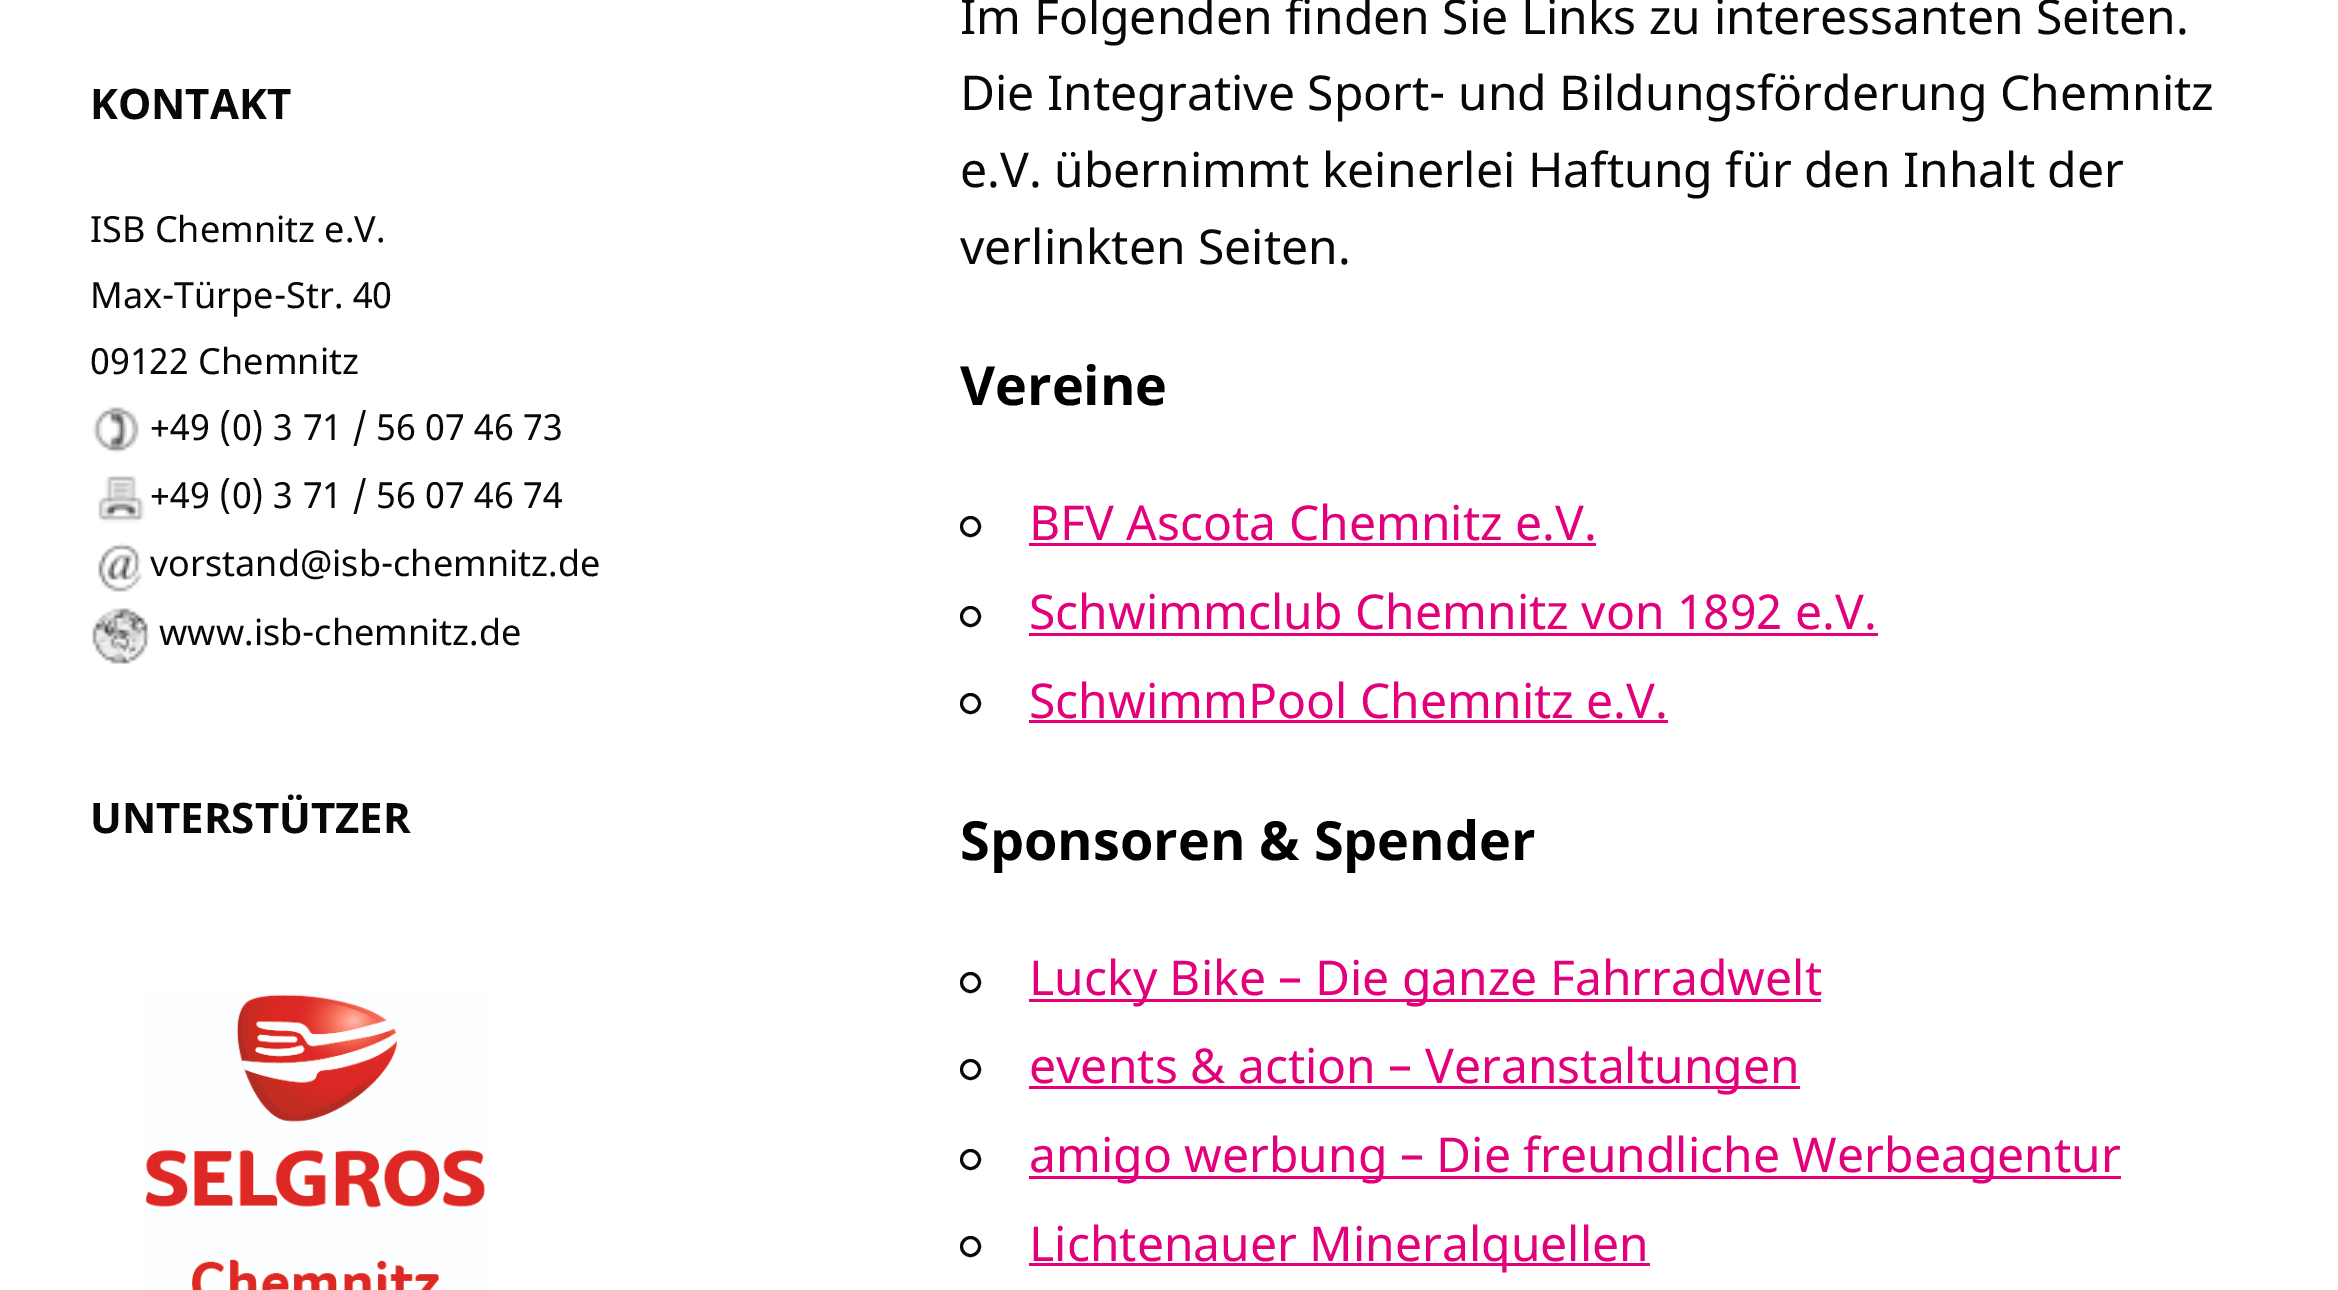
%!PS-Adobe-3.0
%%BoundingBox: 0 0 2338 1290
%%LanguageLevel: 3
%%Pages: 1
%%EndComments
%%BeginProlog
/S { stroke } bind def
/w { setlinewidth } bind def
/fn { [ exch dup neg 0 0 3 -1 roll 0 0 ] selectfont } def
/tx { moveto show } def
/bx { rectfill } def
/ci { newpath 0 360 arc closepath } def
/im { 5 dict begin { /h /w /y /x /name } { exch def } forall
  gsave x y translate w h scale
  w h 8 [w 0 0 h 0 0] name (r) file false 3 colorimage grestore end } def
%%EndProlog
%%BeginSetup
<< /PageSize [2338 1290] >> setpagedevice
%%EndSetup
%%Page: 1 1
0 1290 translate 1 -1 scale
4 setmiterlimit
1 setgray
0 0 2338 1290 bx
/NotoSans-Bold 42 fn
0.031 setgray
(KONTAKT) 90 119 tx
/NotoSans-Regular 36 fn
(ISB Chemnitz e.V.) 90 242 tx
(Max-Türpe-Str. 40) 90 308 tx
(09122 Chemnitz) 90 374 tx
(image0.raw) 92 406 47 48 im
(+49 \(0\) 3 71 / 56 07 46 73) 150 440 tx
(image1.raw) 98 475 47 48 im
(+49 \(0\) 3 71 / 56 07 46 74) 150 508 tx
(image2.raw) 98 542 44 50 im
(vorstand@isb-chemnitz.de) 150 576 tx
(image3.raw) 92 608 58 56 im
(www.isb-chemnitz.de) 159 645 tx
/NotoSans-Bold 42 fn
(UNTERSTÜTZER) 90 833 tx
(image4.raw) 145 994 342 296 im
/NotoSans-Regular 48 fn
(Im Folgenden finden Sie Links zu interessanten Seiten.) 960 34 tx
(Die Integrative Sport- und Bildungsförderung Chemnitz) 960 110 tx
(e.V. übernimmt keinerlei Haftung für den Inhalt der) 960 187 tx
(verlinkten Seiten.) 960 264 tx
/NotoSans-Bold 54 fn
0 setgray
(Vereine) 960 405 tx
0.031 setgray
3 w
970.5 526.5 9 ci S
/NotoSans-Regular 48 fn
0.886 0.004 0.482 setrgbcolor
(BFV Ascota Chemnitz e.V.) 1029 540 tx
1029 543 567 3 bx
0.031 setgray
970.5 616.5 9 ci S
0.886 0.004 0.482 setrgbcolor
(Schwimmclub Chemnitz von 1892 e.V.) 1029 629 tx
1029 633 849 3 bx
0.031 setgray
970.5 703.5 9 ci S
0.886 0.004 0.482 setrgbcolor
(SchwimmPool Chemnitz e.V.) 1029 718 tx
1029 720 639 3 bx
/NotoSans-Bold 54 fn
0 setgray
(Sponsoren & Spender) 960 860 tx
0.031 setgray
970.5 982.5 9 ci S
0.886 0.004 0.482 setrgbcolor
1029 999 792 3 bx
/NotoSans-Regular 48 fn
(Lucky Bike – Die ganze Fahrradwelt) 1029 995 tx
0.031 setgray
970.5 1069.5 9 ci S
0.886 0.004 0.482 setrgbcolor
1029 1086 771 3 bx
(events & action – Veranstaltungen) 1029 1083 tx
0.031 setgray
970.5 1159.5 9 ci S
0.886 0.004 0.482 setrgbcolor
1029 1176 1092 3 bx
(amigo werbung – Die freundliche Werbeagentur) 1029 1172 tx
0.031 setgray
970.5 1246.5 9 ci S
0.886 0.004 0.482 setrgbcolor
1029 1263 621 3 bx
(Lichtenauer Mineralquellen) 1029 1261 tx
showpage
%%EOF
